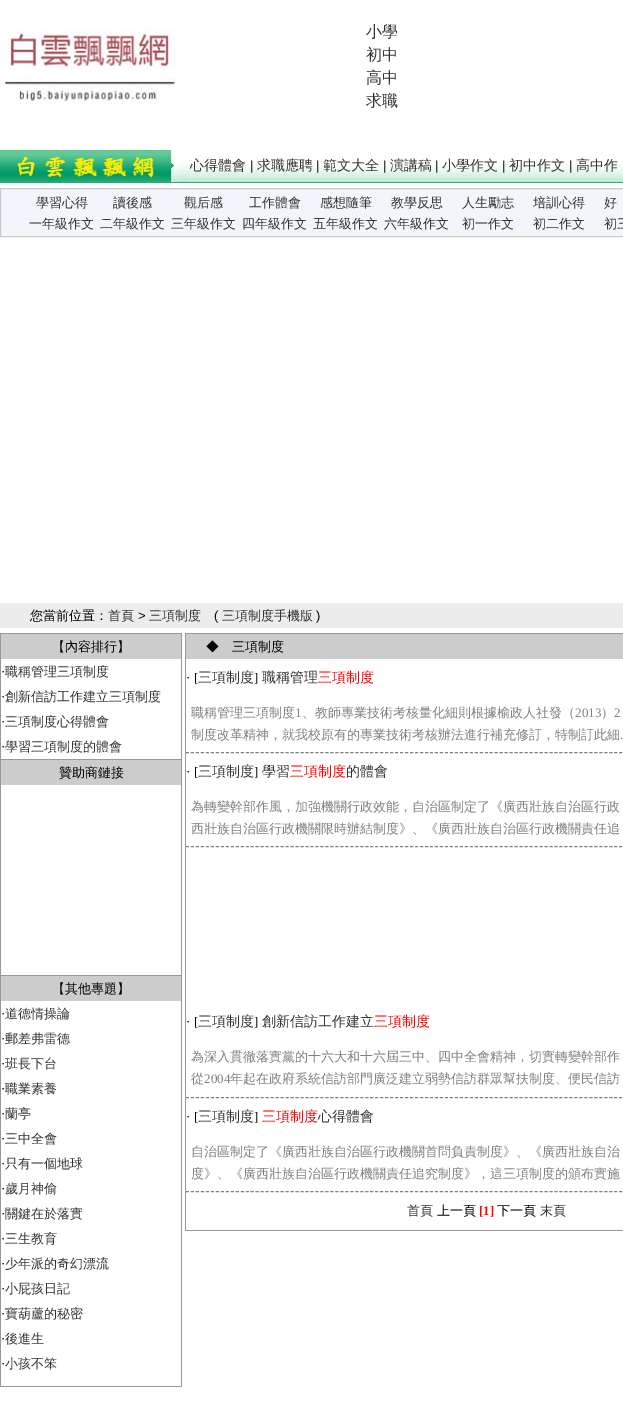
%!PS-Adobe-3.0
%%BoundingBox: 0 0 623 1404
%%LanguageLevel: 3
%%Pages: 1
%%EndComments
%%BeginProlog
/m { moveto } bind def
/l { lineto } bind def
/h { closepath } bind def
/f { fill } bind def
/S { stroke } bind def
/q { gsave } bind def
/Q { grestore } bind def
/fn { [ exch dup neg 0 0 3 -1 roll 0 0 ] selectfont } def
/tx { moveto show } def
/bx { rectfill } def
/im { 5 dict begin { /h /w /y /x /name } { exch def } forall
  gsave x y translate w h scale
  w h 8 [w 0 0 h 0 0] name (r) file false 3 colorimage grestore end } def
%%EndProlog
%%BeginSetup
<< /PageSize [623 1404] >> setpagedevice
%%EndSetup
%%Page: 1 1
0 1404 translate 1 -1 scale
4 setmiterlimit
1 setgray
0 0 623 1404 bx
(image0.raw) 0 28 176 75 im
/WenQuanYiZenHei-Medium 16 fn
0.2 setgray
(小學) 366 37 tx
(初中) 366 60 tx
(高中) 366 83 tx
(求職) 366 106 tx
(image1.raw) 190 164 433 19 im
(image2.raw) 0 150 190 33 im
/WenQuanYiZenHei-Medium 14 fn
(心得體會) 190 170 tx
/LiberationSans-Regular 13 fn
0 setgray
(|) 250 170 tx
/WenQuanYiZenHei-Medium 14 fn
0.2 setgray
(求職應聘) 257 170 tx
/LiberationSans-Regular 13 fn
0 setgray
(|) 316 170 tx
/WenQuanYiZenHei-Medium 14 fn
0.2 setgray
(範文大全) 323 170 tx
/LiberationSans-Regular 13 fn
0 setgray
(|) 383 170 tx
/WenQuanYiZenHei-Medium 14 fn
0.2 setgray
(演講稿) 390 170 tx
/LiberationSans-Regular 13 fn
0 setgray
(|) 435 170 tx
/WenQuanYiZenHei-Medium 14 fn
0.2 setgray
(小學作文) 442 170 tx
/LiberationSans-Regular 13 fn
0 setgray
(|) 502 170 tx
/WenQuanYiZenHei-Medium 14 fn
0.2 setgray
(初中作文) 509 170 tx
/LiberationSans-Regular 13 fn
0 setgray
(|) 569 170 tx
/WenQuanYiZenHei-Medium 14 fn
0.2 setgray
(高中作) 576 170 tx
0.949 0.965 0.984 setrgbcolor
0.5 188.5 m 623.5 188.5 l 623.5 236.5 l 0.5 236.5 l h q f Q
0.796 setgray
S
/WenQuanYiZenHei-Medium 13 fn
0.2 setgray
(學習心得) 36 207 tx
(讀後感) 113 207 tx
(觀后感) 184 207 tx
(工作體會) 249 207 tx
(感想隨筆) 320 207 tx
(教學反思) 391 207 tx
(人生勵志) 462 207 tx
(培訓心得) 533 207 tx
(好) 604 207 tx
(一年級作文) 29 228 tx
(二年級作文) 100 228 tx
(三年級作文) 171 228 tx
(四年級作文) 242 228 tx
(五年級作文) 313 228 tx
(六年級作文) 384 228 tx
(初一作文) 462 228 tx
(初二作文) 533 228 tx
(初三) 604 228 tx
0.925 setgray
0 603 623 25 bx
0 setgray
(您當前位置：) 30 620 tx
0.2 setgray
(首頁) 108 620 tx
/LiberationSans-Regular 13 fn
0 setgray
(>) 138 620 tx
/WenQuanYiZenHei-Medium 13 fn
0.2 setgray
(三項制度) 149 620 tx
/LiberationSans-Regular 13 fn
0 setgray
(\() 214 620 tx
/WenQuanYiZenHei-Medium 13 fn
0.2 setgray
(三項制度手機版) 222 620 tx
/LiberationSans-Regular 13 fn
0 setgray
(\)) 316 620 tx
0.6 setgray
181 633 1 754 bx
0 1386 182 1 bx
0 633 1 754 bx
0.8 setgray
1 634 180 25 bx
0.6 setgray
1 633 180 1 bx
/WenQuanYiZenHei-Medium 13 fn
0 setgray
(【內容排行】) 52 651 tx
/LiberationSerif-Regular 13 fn
(·) 1 676 tx
/WenQuanYiZenHei-Medium 13 fn
0.2 setgray
(職稱管理三項制度) 5 676 tx
/LiberationSerif-Regular 13 fn
0 setgray
(·) 1 701 tx
/WenQuanYiZenHei-Medium 13 fn
0.2 setgray
(創新信訪工作建立三項制度) 5 701 tx
/LiberationSerif-Regular 13 fn
0 setgray
(·) 1 726 tx
/WenQuanYiZenHei-Medium 13 fn
0.2 setgray
(三項制度心得體會) 5 726 tx
/LiberationSerif-Regular 13 fn
0 setgray
(·) 1 751 tx
/WenQuanYiZenHei-Medium 13 fn
0.2 setgray
(學習三項制度的體會) 5 751 tx
0.8 setgray
1 760 180 25 bx
0.6 setgray
1 759 180 1 bx
0 setgray
(贊助商鏈接) 59 777 tx
0.8 setgray
1 976 180 25 bx
0.6 setgray
1 975 180 1 bx
0 setgray
(【其他專題】) 52 993 tx
/LiberationSerif-Regular 13 fn
(·) 1 1018 tx
/WenQuanYiZenHei-Medium 13 fn
0.2 setgray
(道德情操論) 5 1018 tx
/LiberationSerif-Regular 13 fn
0 setgray
(·) 1 1043 tx
/WenQuanYiZenHei-Medium 13 fn
0.2 setgray
(郵差弗雷德) 5 1043 tx
/LiberationSerif-Regular 13 fn
0 setgray
(·) 1 1068 tx
/WenQuanYiZenHei-Medium 13 fn
0.2 setgray
(班長下台) 5 1068 tx
/LiberationSerif-Regular 13 fn
0 setgray
(·) 1 1093 tx
/WenQuanYiZenHei-Medium 13 fn
0.2 setgray
(職業素養) 5 1093 tx
/LiberationSerif-Regular 13 fn
0 setgray
(·) 1 1118 tx
/WenQuanYiZenHei-Medium 13 fn
0.2 setgray
(蘭亭) 5 1118 tx
/LiberationSerif-Regular 13 fn
0 setgray
(·) 1 1143 tx
/WenQuanYiZenHei-Medium 13 fn
0.2 setgray
(三中全會) 5 1143 tx
/LiberationSerif-Regular 13 fn
0 setgray
(·) 1 1168 tx
/WenQuanYiZenHei-Medium 13 fn
0.2 setgray
(只有一個地球) 5 1168 tx
/LiberationSerif-Regular 13 fn
0 setgray
(·) 1 1193 tx
/WenQuanYiZenHei-Medium 13 fn
0.2 setgray
(歲月神偷) 5 1193 tx
/LiberationSerif-Regular 13 fn
0 setgray
(·) 1 1218 tx
/WenQuanYiZenHei-Medium 13 fn
0.2 setgray
(關鍵在於落實) 5 1218 tx
/LiberationSerif-Regular 13 fn
0 setgray
(·) 1 1243 tx
/WenQuanYiZenHei-Medium 13 fn
0.2 setgray
(三生教育) 5 1243 tx
/LiberationSerif-Regular 13 fn
0 setgray
(·) 1 1268 tx
/WenQuanYiZenHei-Medium 13 fn
0.2 setgray
(少年派的奇幻漂流) 5 1268 tx
/LiberationSerif-Regular 13 fn
0 setgray
(·) 1 1293 tx
/WenQuanYiZenHei-Medium 13 fn
0.2 setgray
(小屁孩日記) 5 1293 tx
/LiberationSerif-Regular 13 fn
0 setgray
(·) 1 1318 tx
/WenQuanYiZenHei-Medium 13 fn
0.2 setgray
(寶葫蘆的秘密) 5 1318 tx
/LiberationSerif-Regular 13 fn
0 setgray
(·) 1 1343 tx
/WenQuanYiZenHei-Medium 13 fn
0.2 setgray
(後進生) 5 1343 tx
/LiberationSerif-Regular 13 fn
0 setgray
(·) 1 1368 tx
/WenQuanYiZenHei-Medium 13 fn
0.2 setgray
(小孩不笨) 5 1368 tx
0.6 setgray
185 1230 438 1 bx
185 633 1 598 bx
0.8 setgray
186 634 437 25 bx
0.6 setgray
186 633 437 1 bx
0 setgray
(◆　三項制度) 206 651 tx
/LiberationSerif-Regular 13 fn
(· [) 186 682 tx
/WenQuanYiZenHei-Medium 14 fn
0.2 setgray
(三項制度) 198 682 tx
/LiberationSerif-Regular 13 fn
0 setgray
(]) 254 682 tx
/WenQuanYiZenHei-Medium 14 fn
0.2 setgray
(職稱管理) 262 682 tx
1 0 0 setrgbcolor
(三項制度) 318 682 tx
0.502 setgray
[3 1.98] 0 setdash
186 752.5 m 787 752.5 l S
/WenQuanYiZenHei-Medium 13 fn
(職稱管理三項制度) 191 717 tx
/LiberationSerif-Regular 13 fn
(1) 295 717 tx
/WenQuanYiZenHei-Medium 13 fn
(、教師專業技術考核量化細則根據榆政人社發（) 302 717 tx
/LiberationSerif-Regular 13 fn
(2013) 575 717 tx
/WenQuanYiZenHei-Medium 13 fn
(）) 601 717 tx
/LiberationSerif-Regular 13 fn
(2) 614 717 tx
/WenQuanYiZenHei-Medium 13 fn
(制度改革精神，就我校原有的專業技術考核辦法進行補充修訂，特制訂此細) 191 739 tx
/LiberationSerif-Regular 13 fn
(.) 620 739 tx
0 setgray
(· [) 186 776 tx
/WenQuanYiZenHei-Medium 14 fn
0.2 setgray
(三項制度) 198 776 tx
/LiberationSerif-Regular 13 fn
0 setgray
(]) 254 776 tx
/WenQuanYiZenHei-Medium 14 fn
0.2 setgray
(學習) 262 776 tx
1 0 0 setrgbcolor
(三項制度) 290 776 tx
0.2 setgray
(的體會) 346 776 tx
0.502 setgray
186 846.5 m 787 846.5 l S
/WenQuanYiZenHei-Medium 13 fn
(為轉變幹部作風，加強機關行政效能，自治區制定了《廣西壯族自治區行政) 191 811 tx
(西壯族自治區行政機關限時辦結制度》、《廣西壯族自治區行政機關責任追) 191 833 tx
/LiberationSerif-Regular 13 fn
0 setgray
(· [) 186 1026 tx
/WenQuanYiZenHei-Medium 14 fn
0.2 setgray
(三項制度) 198 1026 tx
/LiberationSerif-Regular 13 fn
0 setgray
(]) 254 1026 tx
/WenQuanYiZenHei-Medium 14 fn
0.2 setgray
(創新信訪工作建立) 262 1026 tx
1 0 0 setrgbcolor
(三項制度) 374 1026 tx
0.502 setgray
186 1097.5 m 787 1097.5 l S
/WenQuanYiZenHei-Medium 13 fn
(為深入貫徹落實黨的十六大和十六屆三中、四中全會精神，切實轉變幹部作) 191 1061 tx
(從) 191 1083 tx
/LiberationSerif-Regular 13 fn
(2004) 204 1083 tx
/WenQuanYiZenHei-Medium 13 fn
(年起在政府系統信訪部門廣泛建立弱勢信訪群眾幫扶制度、便民信訪) 230 1083 tx
/LiberationSerif-Regular 13 fn
0 setgray
(· [) 186 1121 tx
/WenQuanYiZenHei-Medium 14 fn
0.2 setgray
(三項制度) 198 1121 tx
/LiberationSerif-Regular 13 fn
0 setgray
(]) 254 1121 tx
/WenQuanYiZenHei-Medium 14 fn
1 0 0 setrgbcolor
(三項制度) 262 1121 tx
0.2 setgray
(心得體會) 318 1121 tx
0.502 setgray
186 1191.5 m 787 1191.5 l S
/WenQuanYiZenHei-Medium 13 fn
(自治區制定了《廣西壯族自治區行政機關首問負責制度》、《廣西壯族自治) 191 1156 tx
(度》、《廣西壯族自治區行政機關責任追究制度》，這三項制度的頒布實施) 191 1178 tx
0.2 setgray
(首頁) 407 1215 tx
0 setgray
(上一頁) 437 1215 tx
/LiberationSerif-Bold 13 fn
1 0 0 setrgbcolor
([1]) 479 1215 tx
/WenQuanYiZenHei-Medium 13 fn
0 setgray
(下一頁) 497 1215 tx
0.2 setgray
(末頁) 540 1215 tx
showpage
%%EOF
